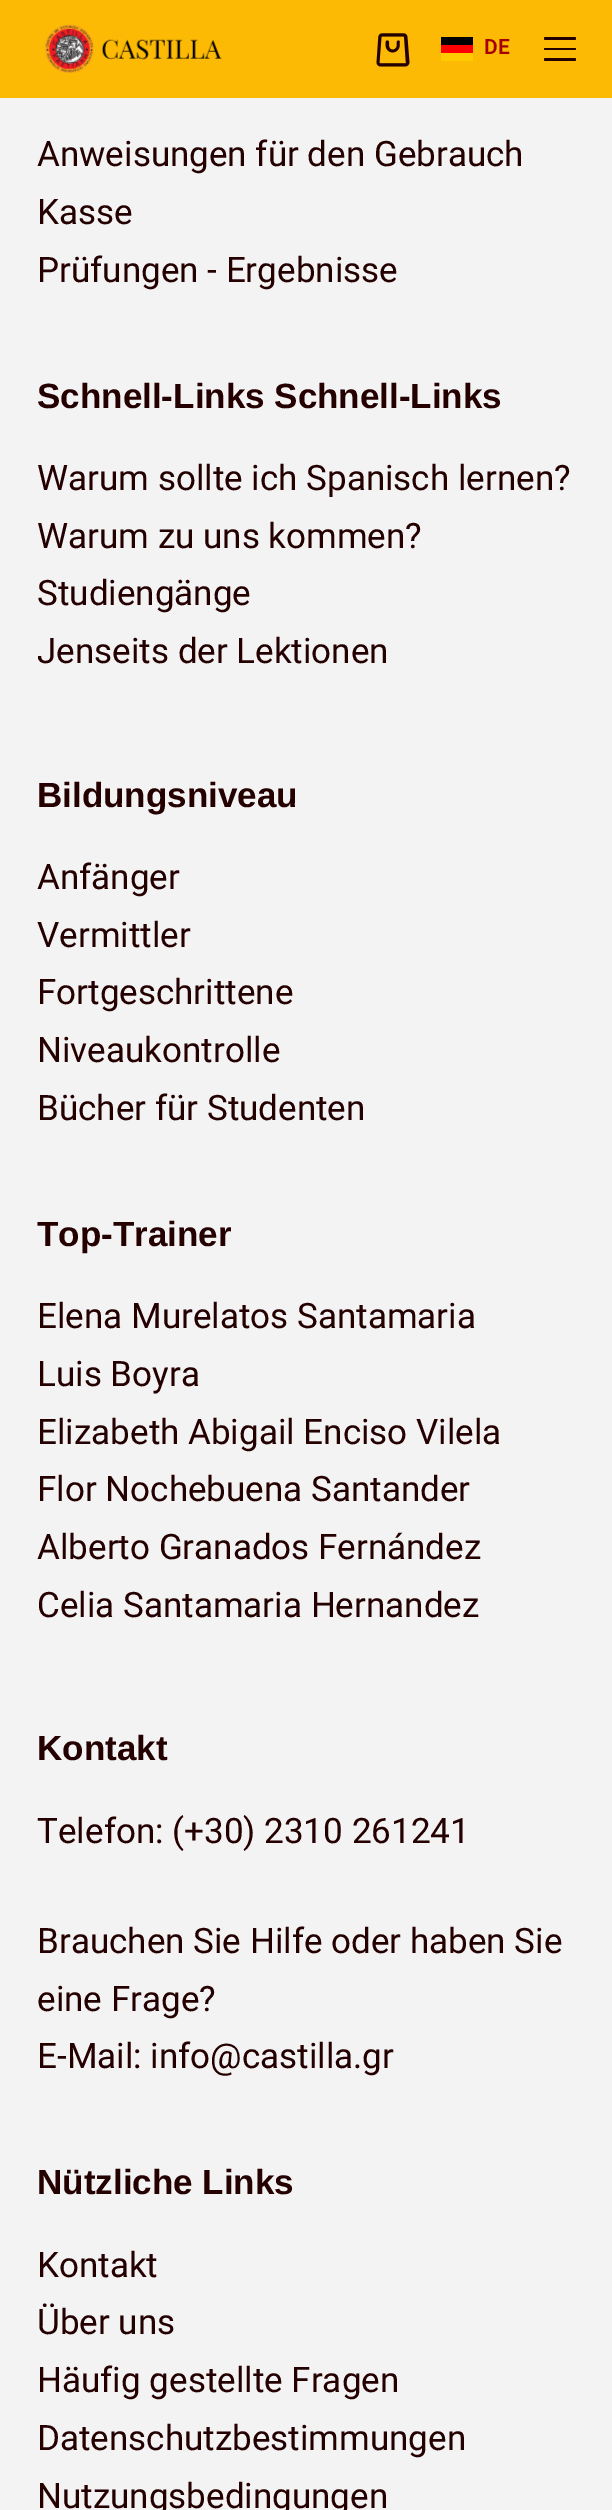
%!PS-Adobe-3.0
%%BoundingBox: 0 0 612 2510
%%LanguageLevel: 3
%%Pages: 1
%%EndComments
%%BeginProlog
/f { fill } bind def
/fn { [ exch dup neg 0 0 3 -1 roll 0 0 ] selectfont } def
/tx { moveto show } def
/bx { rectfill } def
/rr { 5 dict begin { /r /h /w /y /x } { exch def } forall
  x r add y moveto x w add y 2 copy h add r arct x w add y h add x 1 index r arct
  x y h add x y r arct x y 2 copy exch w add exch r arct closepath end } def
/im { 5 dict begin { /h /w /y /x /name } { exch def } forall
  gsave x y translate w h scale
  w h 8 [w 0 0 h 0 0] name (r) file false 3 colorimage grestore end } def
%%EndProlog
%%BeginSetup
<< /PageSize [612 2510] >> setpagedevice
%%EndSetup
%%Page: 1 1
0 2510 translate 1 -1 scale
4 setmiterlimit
0.953 setgray
0 0 612 2510 bx
0.988 0.729 0.016 setrgbcolor
0 0 612 98 bx
(image0.raw) 45 24 177 49 im
(image1.raw) 376 33 34 34 im
1 0.8 0 setrgbcolor
441 53 32 8 bx
0 0 0.004 setrgbcolor
441 37 32 8 bx
1 0 0 setrgbcolor
441 45 32 8 bx
/Roboto-SemiBold 21 fn
0.647 0.004 0.016 setrgbcolor
(DE) 484 54 tx
0.145 0 0.004 setrgbcolor
544 37 32 3 1.5 rr f
544 48 32 2 1 rr f
544 58 32 3 1.5 rr f
/Roboto-Regular 35 fn
(Anweisungen für den Gebrauch) 37 166 tx
(Kasse) 37 224 tx
(Prüfungen - Ergebnisse) 37 282 tx
/LiberationSans-Bold 35 fn
(Schnell-Links Schnell-Links) 37 408 tx
/Roboto-Regular 35 fn
(Warum sollte ich Spanisch lernen?) 37 490 tx
(Warum zu uns kommen?) 37 548 tx
(Studiengänge) 37 605 tx
(Jenseits der Lektionen) 37 663 tx
/LiberationSans-Bold 35 fn
(Bildungsniveau) 37 807 tx
/Roboto-Regular 35 fn
(Anfänger) 37 889 tx
(Vermittler) 37 947 tx
(Fortgeschrittene) 37 1004 tx
(Niveaukontrolle) 37 1062 tx
(Bücher für Studenten) 37 1120 tx
/LiberationSans-Bold 35 fn
(Top-Trainer) 37 1246 tx
/Roboto-Regular 35 fn
(Elena Murelatos Santamaria) 37 1328 tx
(Luis Boyra) 37 1386 tx
(Elizabeth Abigail Enciso Vilela) 37 1444 tx
(Flor Nochebuena Santander) 37 1501 tx
(Alberto Granados Fernández) 37 1559 tx
(Celia Santamaria Hernandez) 37 1617 tx
/LiberationSans-Bold 35 fn
(Kontakt) 37 1760 tx
/Roboto-Regular 35 fn
(Telefon: \(+30\) 2310 261241) 37 1843 tx
(Brauchen Sie Hilfe oder haben Sie) 37 1953 tx
(eine Frage?) 37 2011 tx
(E-Mail: info@castilla.gr) 37 2068 tx
/LiberationSans-Bold 35 fn
(Nützliche Links) 37 2194 tx
/Roboto-Regular 35 fn
(Kontakt) 37 2277 tx
(Über uns) 37 2334 tx
(Häufig gestellte Fragen) 37 2392 tx
(Datenschutzbestimmungen) 37 2450 tx
(Nutzungsbedingungen) 37 2508 tx
showpage
%%EOF
